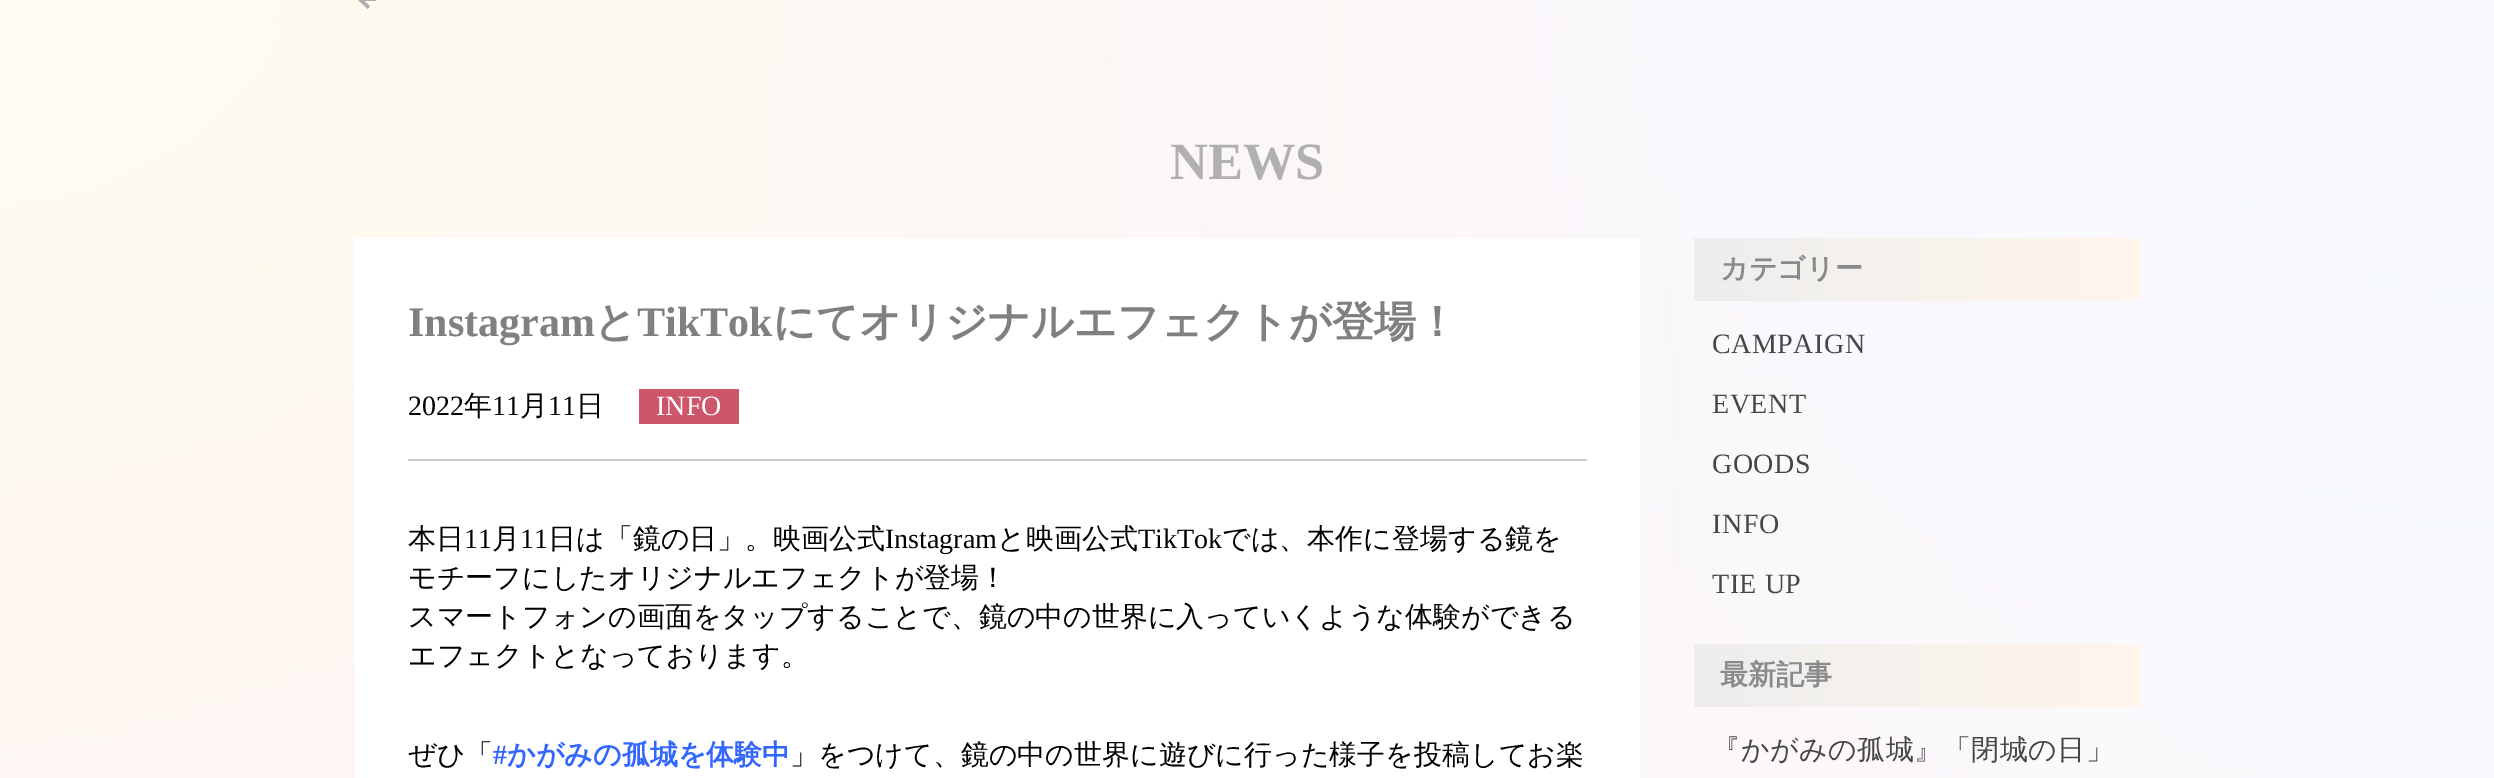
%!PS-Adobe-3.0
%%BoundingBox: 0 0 2494 778
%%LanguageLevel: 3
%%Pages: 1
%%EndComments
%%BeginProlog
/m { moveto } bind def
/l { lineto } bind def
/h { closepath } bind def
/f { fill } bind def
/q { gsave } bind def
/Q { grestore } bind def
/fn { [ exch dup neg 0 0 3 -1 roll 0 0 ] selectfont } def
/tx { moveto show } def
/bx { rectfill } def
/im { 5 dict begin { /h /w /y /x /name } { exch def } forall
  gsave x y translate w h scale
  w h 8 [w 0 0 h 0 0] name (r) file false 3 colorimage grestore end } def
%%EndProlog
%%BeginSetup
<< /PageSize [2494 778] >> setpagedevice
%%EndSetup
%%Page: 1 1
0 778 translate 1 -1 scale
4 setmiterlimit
1 setgray
0 0 2494 778 bx
(image0.raw) 0 0 2494 778 im
0.69 setgray
359 0 17 1 bx
367.5 9 m 357.5 -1 l 360 -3.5 l 370 6.5 l h f
360 1.5 m 357.5 -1 l 367.5 -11 l 370 -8.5 l h f
/LiberationSerif-Bold 52.5 fn
(NEWS) 1170 179 tx
1 setgray
355 238 1285 540 bx
/LiberationSerif-Bold 42 fn
0.502 setgray
(Instagram) 408 336 tx
/WenQuanYiZenHei-Bold 42 fn
(と) 594 336 tx
/LiberationSerif-Bold 42 fn
(TikTok) 637 336 tx
/WenQuanYiZenHei-Bold 42 fn
(にてオリジナルエフェクトが登場！) 773 336 tx
0.8 setgray
408 459 1179 2 bx
/LiberationSerif-Regular 28 fn
0 setgray
(2022) 408 415 tx
/WenQuanYiZenHei-Medium 28 fn
(年) 464 415 tx
/LiberationSerif-Regular 28 fn
(11) 492 415 tx
/WenQuanYiZenHei-Medium 28 fn
(月) 520 415 tx
/LiberationSerif-Regular 28 fn
(11) 548 415 tx
/WenQuanYiZenHei-Medium 28 fn
(日) 576 415 tx
0.804 0.337 0.42 setrgbcolor
639 389 100 35 bx
/LiberationSerif-Regular 28 fn
1 setgray
(INFO) 656 415 tx
/WenQuanYiZenHei-Medium 28 fn
0 setgray
(本日) 408 548 tx
/LiberationSerif-Regular 28 fn
(11) 464 548 tx
/WenQuanYiZenHei-Medium 28 fn
(月) 492 548 tx
/LiberationSerif-Regular 28 fn
(11) 520 548 tx
/WenQuanYiZenHei-Medium 28 fn
(日は「鏡の日」。映画公式) 548 548 tx
/LiberationSerif-Regular 28 fn
(Instagram) 885 548 tx
/WenQuanYiZenHei-Medium 28 fn
(と映画公式) 997 548 tx
/LiberationSerif-Regular 28 fn
(TikTok) 1138 548 tx
/WenQuanYiZenHei-Medium 28 fn
(では、本作に登場する鏡を) 1222 548 tx
(モチーフにしたオリジナルエフェクトが登場！) 408 587 tx
(スマートフォンの画面をタップすることで、鏡の中の世界に入っていくような体験ができる) 408 626 tx
(エフェクトとなっております。) 408 665 tx
(ぜひ「) 408 764 tx
/LiberationSerif-Bold 28 fn
0.2 0.4 1 setrgbcolor
(#) 493 764 tx
/WenQuanYiZenHei-Bold 28 fn
(かがみの孤城を体験中) 507 764 tx
/WenQuanYiZenHei-Medium 28 fn
0 setgray
(」をつけて、鏡の中の世界に遊びに行った様子を投稿してお楽) 790 764 tx
q 1694 238 m 2140 238 l 2140 301 l 1694 301 l h clip newpath
<< /ShadingType 2 /ColorSpace /DeviceRGB /Coords [1694 270 2140 270] /Extend [true true] /Function << /FunctionType 2 /Domain [0 1] /C0 [0.933 0.933 0.933] /C1 [1 0.965 0.925] /N 1 >> >> shfill Q
/WenQuanYiZenHei-Bold 28 fn
0.541 setgray
(カテゴリー) 1720 278 tx
/LiberationSerif-Regular 28 fn
0.275 setgray
1712 353 m 0.5 0 (CAMPAIGN) ashow
1712 413 m 0.5 0 (EVENT) ashow
1712 473 m 0.5 0 (GOODS) ashow
1712 533 m 0.5 0 (INFO) ashow
1712 593 m 0.5 0 (TIE UP) ashow
q 1694 644 m 2140 644 l 2140 707 l 1694 707 l h clip newpath
<< /ShadingType 2 /ColorSpace /DeviceRGB /Coords [1694 676 2140 676] /Extend [true true] /Function << /FunctionType 2 /Domain [0 1] /C0 [0.933 0.933 0.933] /C1 [1 0.965 0.925] /N 1 >> >> shfill Q
/WenQuanYiZenHei-Bold 28 fn
0.541 setgray
(最新記事) 1720 684 tx
/WenQuanYiZenHei-Medium 28 fn
0.275 setgray
1712 759 m 0.5 0 (『かがみの孤城』「閉城の日」) ashow
showpage
%%EOF
